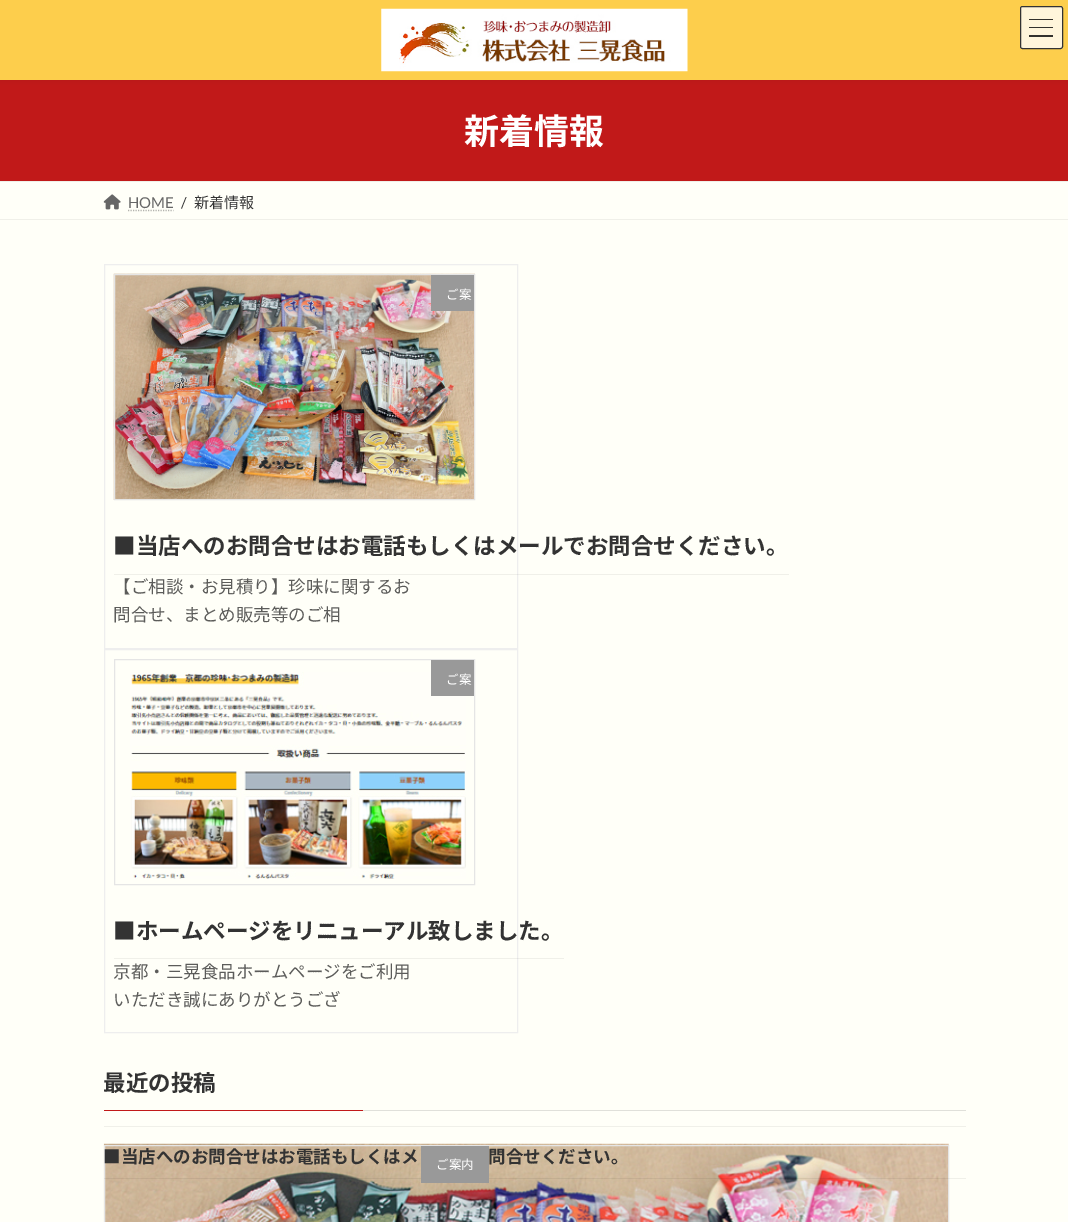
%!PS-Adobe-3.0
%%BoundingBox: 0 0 1068 1222
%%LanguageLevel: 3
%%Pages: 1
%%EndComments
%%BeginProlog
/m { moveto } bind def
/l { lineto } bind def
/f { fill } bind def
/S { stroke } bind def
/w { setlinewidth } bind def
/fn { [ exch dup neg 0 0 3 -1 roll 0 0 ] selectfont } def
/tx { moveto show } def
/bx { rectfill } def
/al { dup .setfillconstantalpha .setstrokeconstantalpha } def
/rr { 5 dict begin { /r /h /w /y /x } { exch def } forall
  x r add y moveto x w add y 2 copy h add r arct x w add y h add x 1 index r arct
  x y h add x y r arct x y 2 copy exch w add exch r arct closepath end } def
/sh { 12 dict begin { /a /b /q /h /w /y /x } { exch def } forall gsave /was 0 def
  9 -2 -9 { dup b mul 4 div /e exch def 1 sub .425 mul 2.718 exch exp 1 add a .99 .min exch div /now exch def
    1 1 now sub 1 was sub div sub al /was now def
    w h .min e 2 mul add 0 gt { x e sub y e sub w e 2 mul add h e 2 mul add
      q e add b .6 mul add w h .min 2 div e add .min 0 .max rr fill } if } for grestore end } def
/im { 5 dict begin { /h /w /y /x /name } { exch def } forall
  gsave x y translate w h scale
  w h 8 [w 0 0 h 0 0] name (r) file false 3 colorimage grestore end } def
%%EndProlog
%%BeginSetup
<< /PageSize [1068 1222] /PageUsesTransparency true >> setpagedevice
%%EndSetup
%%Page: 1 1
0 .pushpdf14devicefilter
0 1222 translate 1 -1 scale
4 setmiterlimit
1 1 0.973 setrgbcolor
0 0 1068 1222 bx
0.757 0.098 0.098 setrgbcolor
0 80 1068 101 bx
0 setgray
0 1 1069 80 0 2 0.05 sh
0.992 0.808 0.298 setrgbcolor
0 0 1068 80 bx
(image0.raw) 381 8 307 64 im
1 0.961 0.859 setrgbcolor
1020 6 43 43 2.5 rr f
0.2 0.192 0.173 setrgbcolor
1029 19 24 1 bx
1029 27 24 1 bx
1029 35 24 2 bx
0.2 setgray
1020.5 6.5 42 42 2 rr S
/NotoSansJP-Bold 35 fn
1 setgray
(新着情報) 464 144 tx
0.941 0.941 0.914 setrgbcolor
0 181 1068 1 bx
0 219 1068 1 bx
(image1.raw) 103 194 18 16 im
/Lato-Regular 15 fn
0.4 setgray
(HOME) 128 208 tx
0.702 0.702 0.682 setrgbcolor
1.2 w
[1.25 1.25] 0 setdash
128 210.5 m 173.5 210.5 l S
0.2 setgray
(/) 181 208 tx
/NotoSansJP-Regular 15 fn
(新着情報) 194 208 tx
0.933 setgray
1 w
[] 0 setdash
104.5 264.5 413 384 rectstroke
(image2.raw) 113 273 362 227 im
0.898 setgray
114.5 274.5 360 225 rectstroke
0.6 setgray
431 275 43 36 bx
/NotoSansJP-Regular 12.5 fn
1 setgray
(ご案) 446 299 tx
0.06 al
0 setgray
114 574 675 1 bx
/NotoSansJP-Bold 22.5 fn
1 al
0.2 setgray
(■当店へのお問合せはお電話もしくはメールでお問合せください。) 113 554 tx
/NotoSansJP-Regular 17.5 fn
0.361 0.361 0.353 setrgbcolor
(【ご相談・お見積り】珍味に関するお) 113 593 tx
(問合せ、まとめ販売等のご相) 113 621 tx
0.933 setgray
104.5 649.5 413 383 rectstroke
(image3.raw) 130 672 336 207 im
0.898 setgray
114.5 659.5 360 225 rectstroke
0.6 setgray
431 660 43 36 bx
/NotoSansJP-Regular 12.5 fn
1 setgray
(ご案) 446 684 tx
0.06 al
0 setgray
114 958 450 1 bx
/NotoSansJP-Bold 22.5 fn
1 al
0.2 setgray
(■ホームページをリニューアル致しました。) 113 939 tx
/NotoSansJP-Regular 17.5 fn
0.361 0.361 0.353 setrgbcolor
(京都・三晃食品ホームページをご利用) 113 978 tx
(いただき誠にありがとうござ) 113 1006 tx
0.878 0.878 0.855 setrgbcolor
363 1110 603 1 bx
/NotoSansJP-Bold 22.5 fn
0.2 setgray
(最近の投稿) 103 1091 tx
0.757 0.098 0.098 setrgbcolor
104 1110 259 1 bx
0.941 0.941 0.914 setrgbcolor
104 1126 862 1 bx
(image4.raw) 103 1143 846 79 im
0.898 setgray
104.5 1145.5 844 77 rectstroke
0.06 al
0 setgray
104 1178 862 1 bx
/NotoSansJP-Bold 17.5 fn
1 al
0.2 setgray
(■当店へのお問合せはお電話もしくはメ) 103 1163 tx
(問合せください。) 488 1163 tx
0.6 setgray
421 1146 68 37 bx
/NotoSansJP-Regular 12.5 fn
1 setgray
(ご案内) 436 1169 tx
.poppdf14devicefilter showpage
%%EOF
